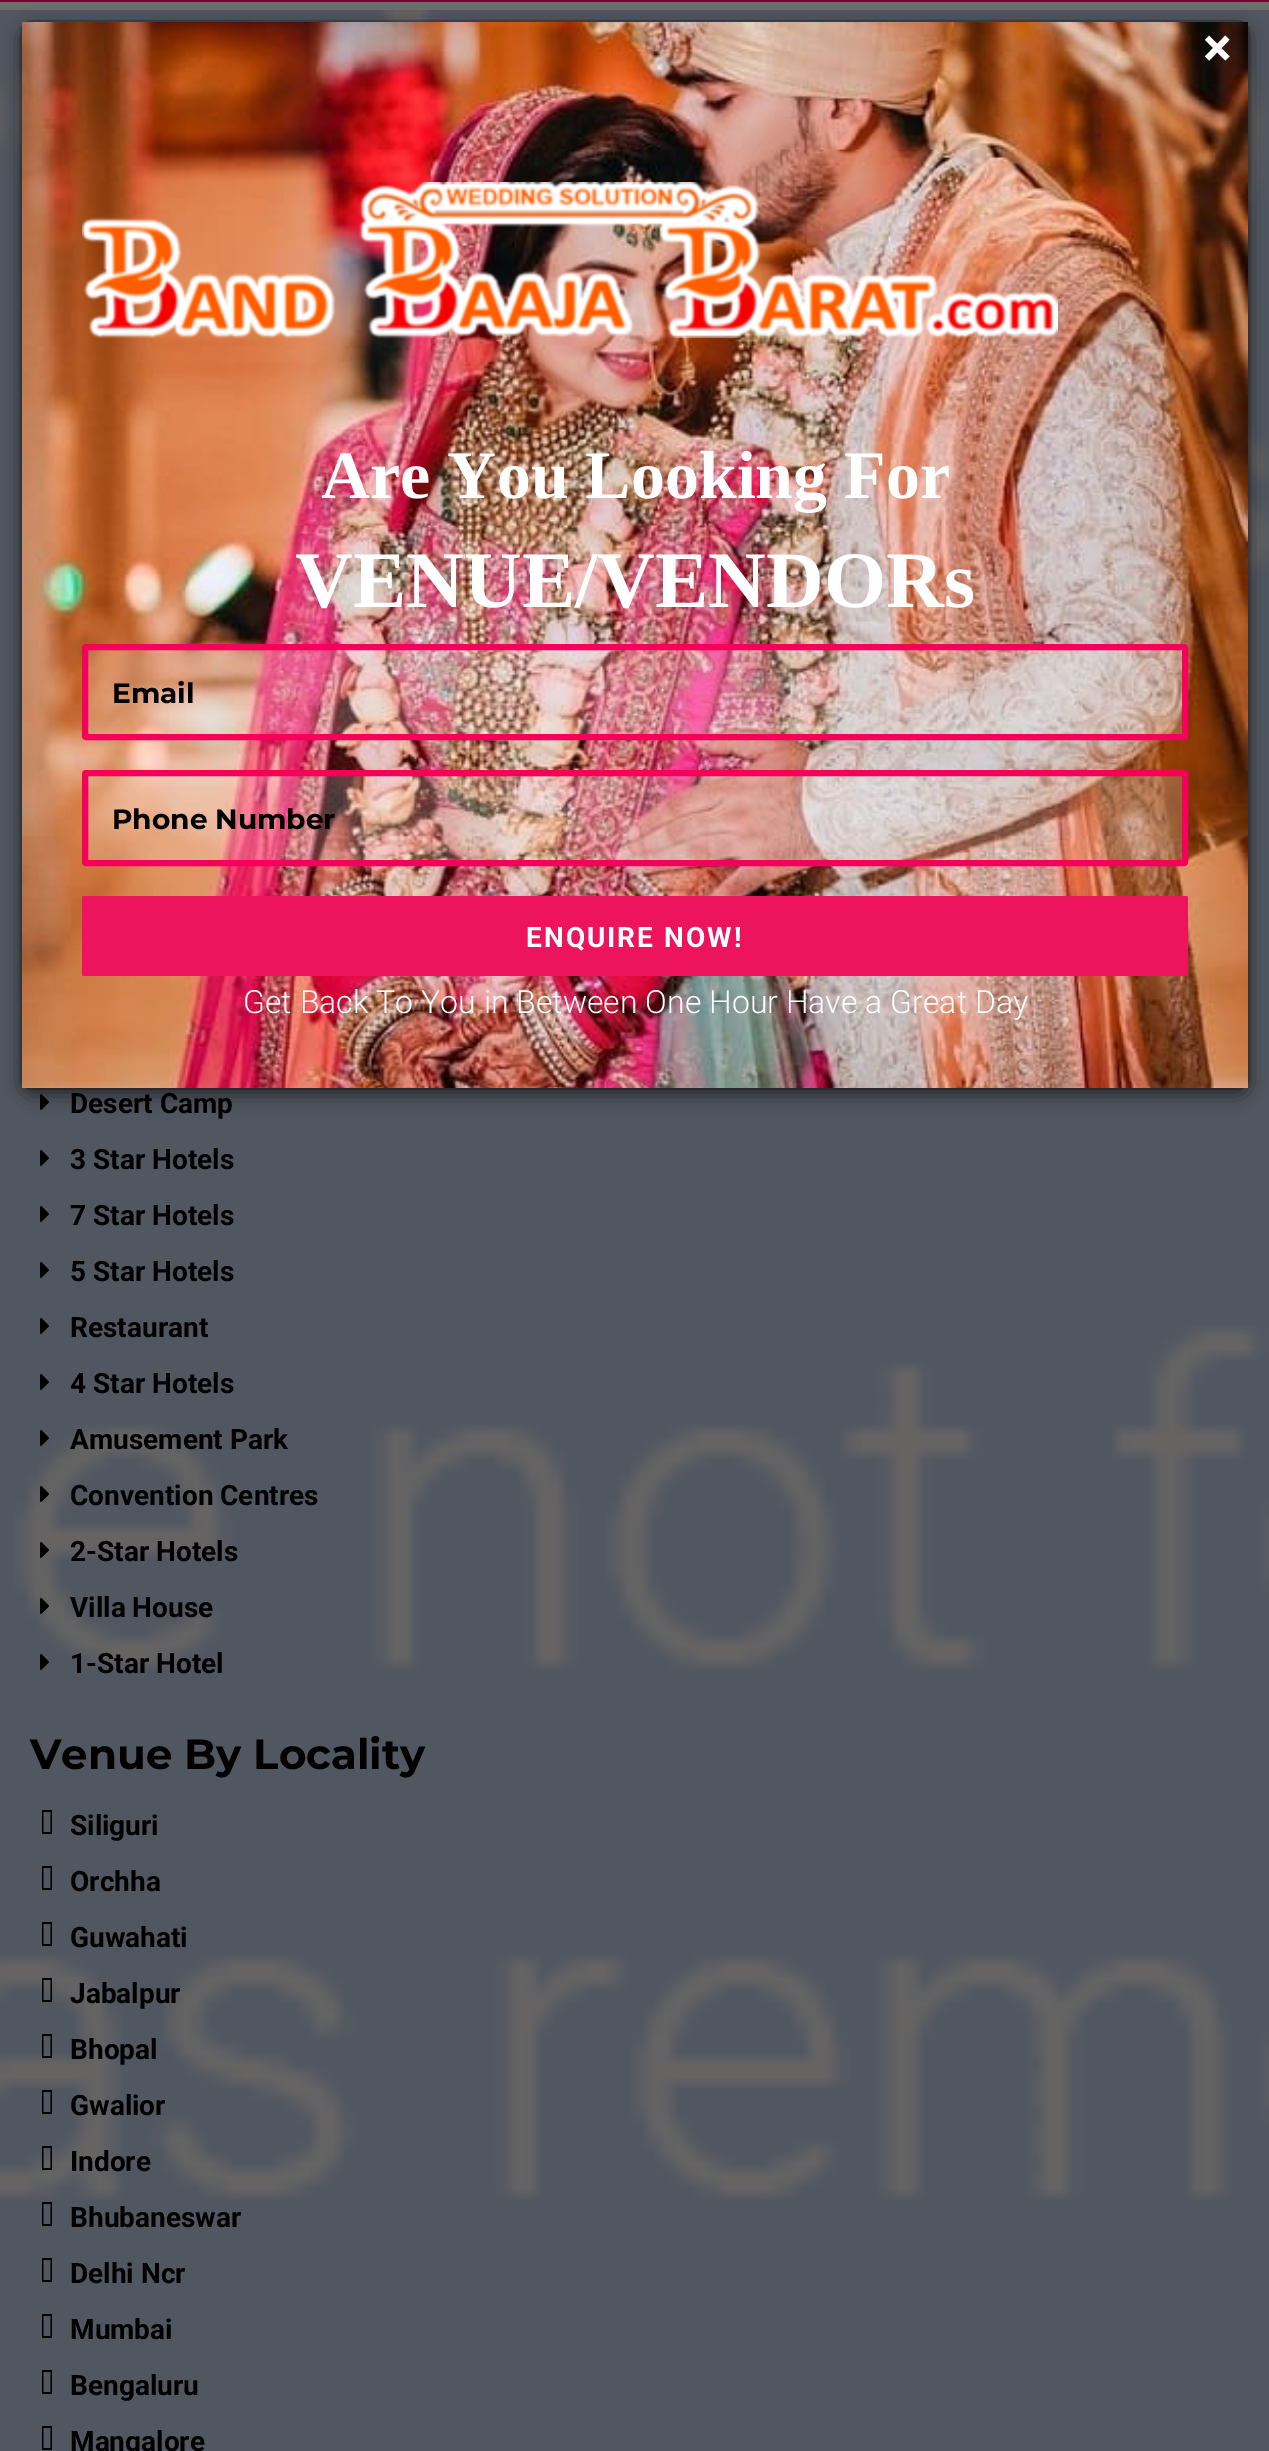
%!PS-Adobe-3.0
%%BoundingBox: 0 0 1269 2451
%%LanguageLevel: 3
%%Pages: 1
%%EndComments
%%BeginProlog
/m { moveto } bind def
/l { lineto } bind def
/h { closepath } bind def
/f { fill } bind def
/S { stroke } bind def
/w { setlinewidth } bind def
/fn { [ exch dup neg 0 0 3 -1 roll 0 0 ] selectfont } def
/tx { moveto show } def
/bx { rectfill } def
/al { dup .setfillconstantalpha .setstrokeconstantalpha } def
/rr { 5 dict begin { /r /h /w /y /x } { exch def } forall
  x r add y moveto x w add y 2 copy h add r arct x w add y h add x 1 index r arct
  x y h add x y r arct x y 2 copy exch w add exch r arct closepath end } def
/sh { 12 dict begin { /a /b /q /h /w /y /x } { exch def } forall gsave /was 0 def
  9 -2 -9 { dup b mul 4 div /e exch def 1 sub .425 mul 2.718 exch exp 1 add a .99 .min exch div /now exch def
    1 1 now sub 1 was sub div sub al /was now def
    w h .min e 2 mul add 0 gt { x e sub y e sub w e 2 mul add h e 2 mul add
      q e add b .6 mul add w h .min 2 div e add .min 0 .max rr fill } if } for grestore end } def
/im { 5 dict begin { /h /w /y /x /name } { exch def } forall
  gsave x y translate w h scale
  w h 8 [w 0 0 h 0 0] name (r) file false 3 colorimage grestore end } def
%%EndProlog
%%BeginSetup
<< /PageSize [1269 2451] /PageUsesTransparency true >> setpagedevice
%%EndSetup
%%Page: 1 1
0 .pushpdf14devicefilter
0 2451 translate 1 -1 scale
4 setmiterlimit
0.396 0.392 0.388 setrgbcolor
0 0 1269 2451 bx
0.482 0 0.176 setrgbcolor
0 0 1269 2 bx
0.431 setgray
0 2 1269 8 bx
(image2.raw) 0 10 1269 2441 im
(image3.raw) 40 1094 9 16 im
0 setgray
20 26 1230 1070 12 9 0.5 sh
0.2 al
2 w
21 21 1228 1068 11 rr S
1 al
(image0.raw) 22 22 1226 1066 im
/Roboto-Bold 54 fn
1 setgray
(×) 1203 66 tx
(image1.raw) 82 182 976 156 im
/LiberationSerif-Bold 68 fn
(Are You Looking For) 321 498 tx
/LiberationSerif-Bold 80 fn
(VENUE/VENDORs) 295 607 tx
0.2 al
0.992 0.992 0.984 setrgbcolor
85 647 1100 90 1 rr f
1 al
0.961 0 0.353 setrgbcolor
6 w
85 647 1100 90 1 rr S
/Montserrat-Bold 28 fn
0 setgray
(Email) 112 703 tx
0.2 al
0.992 0.992 0.984 setrgbcolor
85 773 1100 90 1 rr f
1 al
0.961 0 0.353 setrgbcolor
85 773 1100 90 1 rr S
0 setgray
(Phone Number) 112 829 tx
0.929 0.075 0.365 setrgbcolor
82 896 1106 80 2 rr f
/Roboto-Bold 28 fn
1 setgray
526 947 m 2 0 (ENQUIRE NOW!) ashow
/Roboto-Light 32 fn
(Get Back To You in Between One Hour Have a Great Day) 243 1013 tx
/Roboto-Bold 28 fn
0 setgray
(Desert Camp) 70 1113 tx
(image3.raw) 40 1150 9 16 im
(3 Star Hotels) 70 1169 tx
(image3.raw) 40 1206 9 16 im
(7 Star Hotels) 70 1225 tx
(image3.raw) 40 1262 9 16 im
(5 Star Hotels) 70 1281 tx
(image3.raw) 40 1318 9 16 im
(Restaurant) 70 1337 tx
(image3.raw) 40 1374 9 16 im
(4 Star Hotels) 70 1393 tx
(image3.raw) 40 1430 9 16 im
(Amusement Park) 70 1449 tx
(image4.raw) 40 1486 9 16 im
(Convention Centres) 70 1505 tx
(image5.raw) 40 1542 9 16 im
(2-Star Hotels) 70 1561 tx
(image6.raw) 40 1598 9 16 im
(Villa House) 70 1617 tx
(image3.raw) 40 1654 9 16 im
(1-Star Hotel) 70 1673 tx
/Montserrat-Bold 42 fn
(Venue By Locality) 30 1769 tx
43.5 1832 m 50.5 1832 l 50.5 1812 l 43.5 1812 l h 42 1834 m 42 1810 l 52 1810 l 52 1834 l h f
/Roboto-Bold 28 fn
(Siliguri) 70 1835 tx
43.5 1888 m 50.5 1888 l 50.5 1868 l 43.5 1868 l h 42 1890 m 42 1866 l 52 1866 l 52 1890 l h f
(Orchha) 70 1891 tx
43.5 1944 m 50.5 1944 l 50.5 1924 l 43.5 1924 l h 42 1946 m 42 1922 l 52 1922 l 52 1946 l h f
(Guwahati) 70 1947 tx
43.5 2000 m 50.5 2000 l 50.5 1980 l 43.5 1980 l h 42 2002 m 42 1978 l 52 1978 l 52 2002 l h f
(Jabalpur) 70 2003 tx
43.5 2056 m 50.5 2056 l 50.5 2036 l 43.5 2036 l h 42 2058 m 42 2034 l 52 2034 l 52 2058 l h f
(Bhopal) 70 2059 tx
43.5 2112 m 50.5 2112 l 50.5 2092 l 43.5 2092 l h 42 2114 m 42 2090 l 52 2090 l 52 2114 l h f
(Gwalior) 70 2115 tx
43.5 2168 m 50.5 2168 l 50.5 2148 l 43.5 2148 l h 42 2170 m 42 2146 l 52 2146 l 52 2170 l h f
(Indore) 70 2171 tx
43.5 2224 m 50.5 2224 l 50.5 2204 l 43.5 2204 l h 42 2226 m 42 2202 l 52 2202 l 52 2226 l h f
(Bhubaneswar) 70 2227 tx
43.5 2280 m 50.5 2280 l 50.5 2260 l 43.5 2260 l h 42 2282 m 42 2258 l 52 2258 l 52 2282 l h f
(Delhi Ncr) 70 2283 tx
43.5 2336 m 50.5 2336 l 50.5 2316 l 43.5 2316 l h 42 2338 m 42 2314 l 52 2314 l 52 2338 l h f
(Mumbai) 70 2339 tx
43.5 2392 m 50.5 2392 l 50.5 2372 l 43.5 2372 l h 42 2394 m 42 2370 l 52 2370 l 52 2394 l h f
(Bengaluru) 70 2395 tx
43.5 2448 m 50.5 2448 l 50.5 2428 l 43.5 2428 l h 42 2450 m 42 2426 l 52 2426 l 52 2450 l h f
(Mangalore) 70 2451 tx
.poppdf14devicefilter showpage
%%EOF
